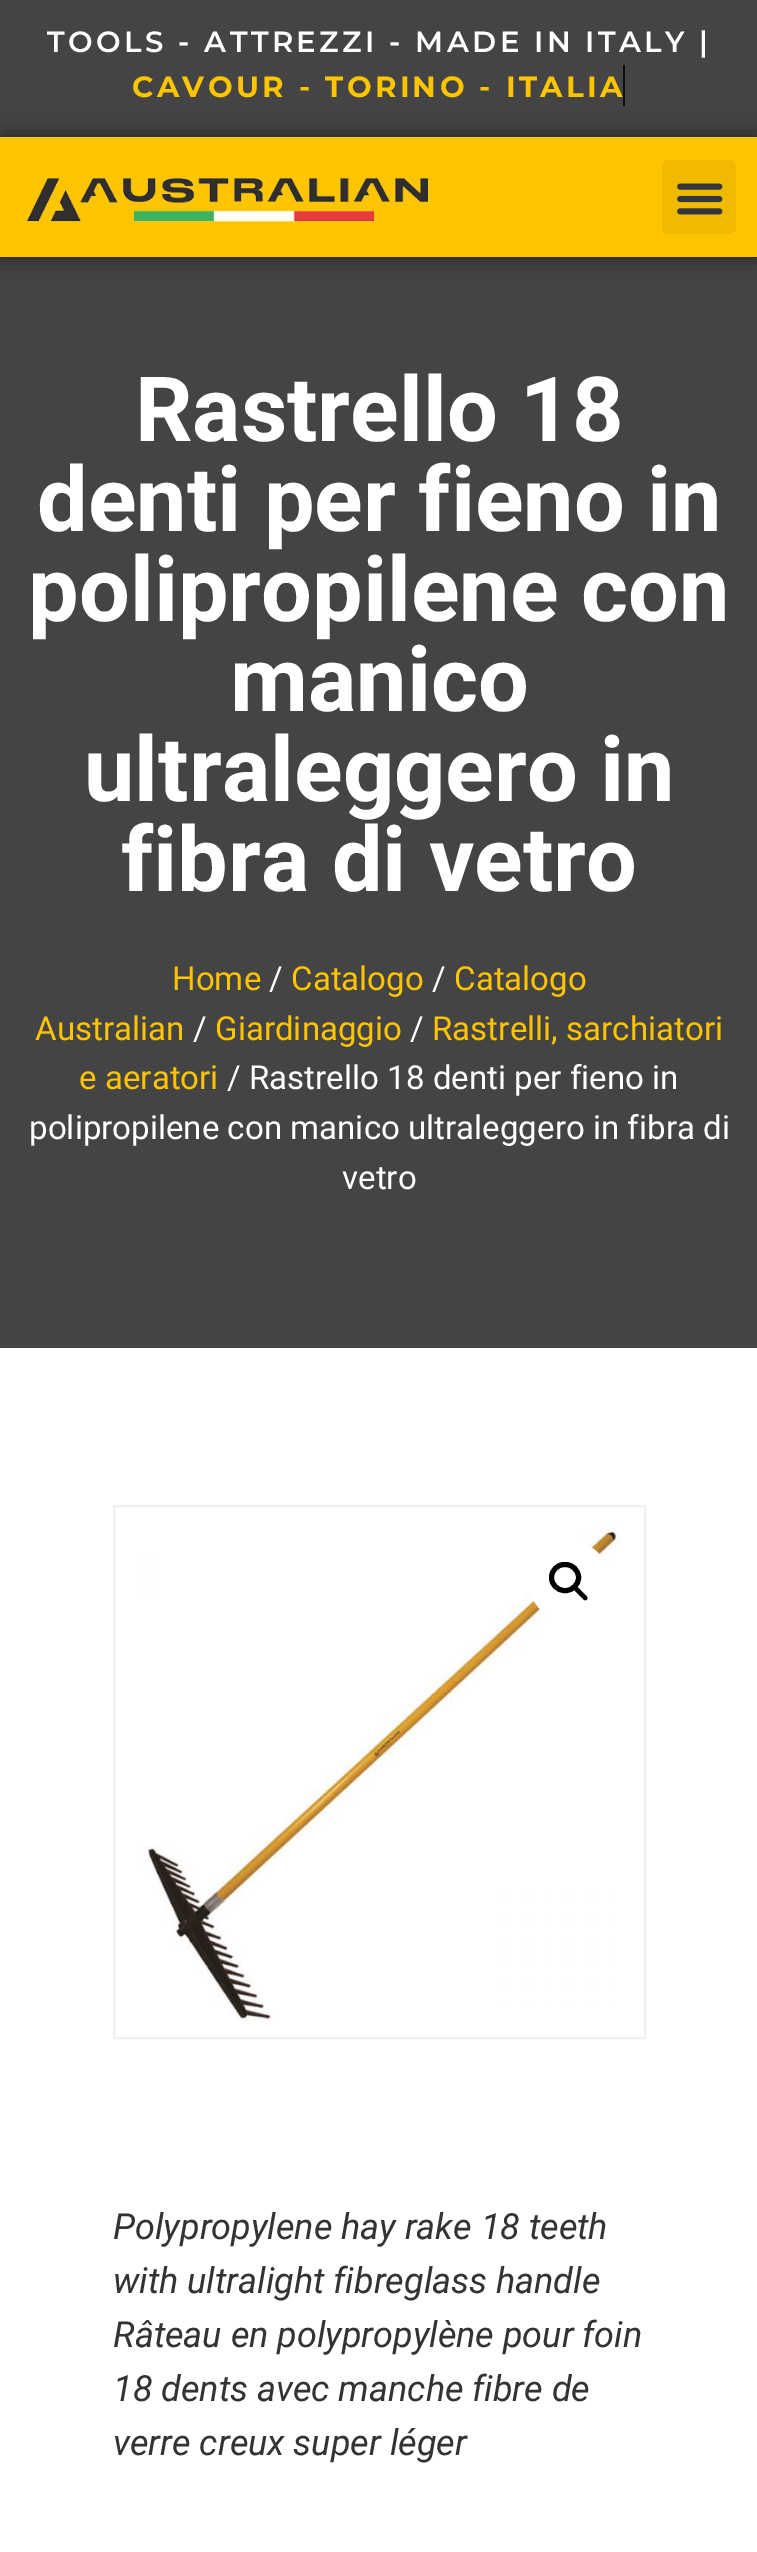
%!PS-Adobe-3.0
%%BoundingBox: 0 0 757 2552
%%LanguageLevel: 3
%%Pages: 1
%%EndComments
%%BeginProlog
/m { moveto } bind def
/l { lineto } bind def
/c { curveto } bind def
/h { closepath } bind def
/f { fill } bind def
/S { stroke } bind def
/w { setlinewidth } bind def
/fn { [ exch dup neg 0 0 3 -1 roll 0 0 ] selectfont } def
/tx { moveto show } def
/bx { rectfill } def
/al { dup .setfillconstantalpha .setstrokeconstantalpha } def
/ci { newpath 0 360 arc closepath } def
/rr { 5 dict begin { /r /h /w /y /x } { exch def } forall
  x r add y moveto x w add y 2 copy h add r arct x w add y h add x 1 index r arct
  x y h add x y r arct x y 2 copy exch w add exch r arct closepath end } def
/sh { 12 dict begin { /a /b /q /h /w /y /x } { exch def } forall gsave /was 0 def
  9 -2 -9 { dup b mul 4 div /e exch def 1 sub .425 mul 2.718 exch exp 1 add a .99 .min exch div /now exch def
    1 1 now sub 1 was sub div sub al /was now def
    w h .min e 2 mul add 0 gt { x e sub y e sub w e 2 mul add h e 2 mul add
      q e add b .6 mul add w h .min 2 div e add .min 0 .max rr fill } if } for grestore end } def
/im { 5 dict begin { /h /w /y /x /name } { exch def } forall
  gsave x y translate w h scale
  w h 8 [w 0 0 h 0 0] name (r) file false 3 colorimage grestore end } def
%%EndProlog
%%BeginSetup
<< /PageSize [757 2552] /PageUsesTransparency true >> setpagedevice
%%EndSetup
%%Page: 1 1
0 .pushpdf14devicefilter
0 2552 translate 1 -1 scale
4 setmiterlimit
1 setgray
0 0 757 2552 bx
0.267 setgray
0 0 757 137 bx
/Montserrat-SemiBold 29.25 fn
1 setgray
47 52 m 3.4 0 (TOOLS - ATTREZZI - MADE IN ITALY |) ashow
/Montserrat-Bold 29.25 fn
0.992 0.769 0 setrgbcolor
132 97 m 3.4 0 (CAVOUR - TORINO - ITALIA) ashow
0.051 setgray
623 65 2 41 bx
0.267 setgray
0 257 757 1091 bx
0 setgray
0 137 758 120 0 11 0.5 sh
0.992 0.769 0 setrgbcolor
0 137 757 120 bx
(image0.raw) 26 177 403 45 im
0.941 0.729 0 setrgbcolor
662 160 74 74 7 rr f
(image1.raw) 677 183 46 32 im
/Heebo-Bold 90 fn
1 setgray
(Rastrello 18) 135 441 tx
(denti per fieno in) 37 531 tx
(polipropilene con) 28 621 tx
(manico) 230 711 tx
(ultraleggero in) 84 801 tx
(fibra di vetro) 121 891 tx
/Roboto-Regular 33.1 fn
0.992 0.769 0 setrgbcolor
(Home) 172 990 tx
1 setgray
(/) 269 990 tx
0.992 0.769 0 setrgbcolor
(Catalogo) 291 990 tx
1 setgray
(/) 432 990 tx
0.992 0.769 0 setrgbcolor
(Catalogo) 454 990 tx
(Australian) 35 1040 tx
1 setgray
(/) 193 1040 tx
0.992 0.769 0 setrgbcolor
(Giardinaggio) 215 1040 tx
1 setgray
(/) 410 1040 tx
0.992 0.769 0 setrgbcolor
(Rastrelli, sarchiatori) 432 1040 tx
(e aeratori) 79 1089 tx
1 setgray
(/ Rastrello 18 denti per fieno in) 227 1089 tx
(polipropilene con manico ultraleggero in fibra di) 29 1139 tx
(vetro) 342 1189 tx
0.941 setgray
2 w
114 1506 531 532 rectstroke
(image2.raw) 143 1522 479 500 im
1 setgray
569.5 1581.5 40.5 ci f
0 setgray
5 w
551.5 1564.5 27 26 13 rr S
574 1587 m 575 1586 576.5 1586 577.5 1587 c 587 1596.5 l 587.5 1597.5 587.5 1598.5 587 1599.5 c 586 1600.5 584.5 1600.5 583.5 1599.5 c 574 1590 l 573.5 1589 573.5 1588 574 1587 c h f
/Roboto-Italic 36 fn
0.2 setgray
(Polypropylene hay rake 18 teeth) 113 2239 tx
(with ultralight fibreglass handle) 113 2293 tx
(Râteau en polypropylène pour foin) 113 2347 tx
(18 dents avec manche fibre de) 113 2401 tx
(verre creux super léger) 113 2455 tx
.poppdf14devicefilter showpage
%%EOF
